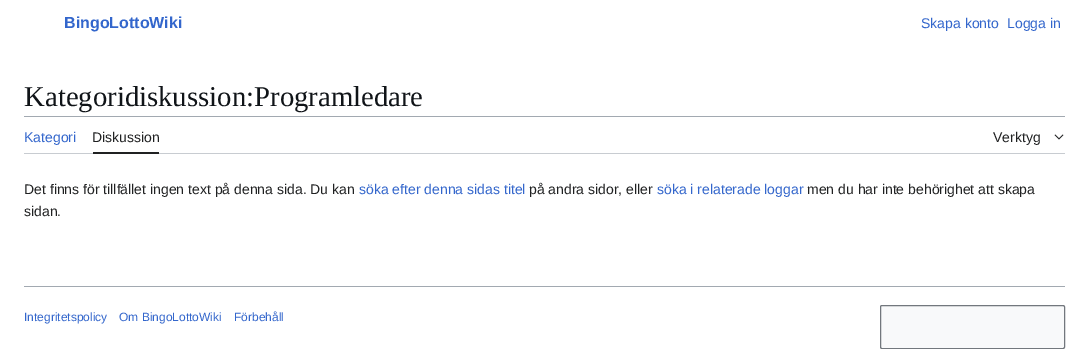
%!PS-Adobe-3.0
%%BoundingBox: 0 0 1089 349
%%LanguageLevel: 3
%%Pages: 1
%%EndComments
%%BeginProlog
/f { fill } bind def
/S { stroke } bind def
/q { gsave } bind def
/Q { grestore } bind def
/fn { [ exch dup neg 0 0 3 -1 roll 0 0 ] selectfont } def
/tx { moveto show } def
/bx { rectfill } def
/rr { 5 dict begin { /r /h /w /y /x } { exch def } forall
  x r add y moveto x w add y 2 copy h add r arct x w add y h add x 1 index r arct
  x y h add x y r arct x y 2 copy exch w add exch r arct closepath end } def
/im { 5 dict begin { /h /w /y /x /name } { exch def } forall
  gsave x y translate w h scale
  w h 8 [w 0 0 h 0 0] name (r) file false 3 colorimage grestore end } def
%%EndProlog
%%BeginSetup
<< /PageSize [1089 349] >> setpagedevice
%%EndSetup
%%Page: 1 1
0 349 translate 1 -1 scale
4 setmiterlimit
1 setgray
0 0 1089 349 bx
/LiberationSans-Bold 16 fn
0.2 0.4 0.8 setrgbcolor
(BingoLottoWiki) 64 28 tx
/LiberationSans-Regular 14 fn
(Skapa konto) 921 28 tx
(Logga in) 1007 28 tx
/LiberationSerif-Regular 28.75 fn
0.063 0.078 0.094 setrgbcolor
(Kategoridiskussion:Programledare) 24 106 tx
0.635 0.663 0.694 setrgbcolor
24 116 1041 1 bx
0.784 0.8 0.82 setrgbcolor
24 153 1041 1 bx
/LiberationSans-Regular 14 fn
0.2 0.4 0.8 setrgbcolor
(Kategori) 24 142 tx
0.125 0.129 0.133 setrgbcolor
93 152 66 2 bx
(Diskussion) 92 142 tx
(Verktyg) 993 142 tx
(image0.raw) 1054 134 10 6 im
(Det finns för tillfället ingen text på denna sida. Du kan) 24 194 tx
0.2 0.4 0.8 setrgbcolor
(söka efter denna sidas titel) 359 194 tx
0.125 0.129 0.133 setrgbcolor
(på andra sidor, eller) 529 194 tx
0.2 0.4 0.8 setrgbcolor
(söka i relaterade loggar) 657 194 tx
0.125 0.129 0.133 setrgbcolor
(men du har inte behörighet att skapa) 807 194 tx
(sidan.) 24 216 tx
0.635 0.663 0.694 setrgbcolor
24 286 1041 1 bx
/LiberationSans-Regular 12 fn
0.2 0.4 0.8 setrgbcolor
(Integritetspolicy) 24 321 tx
(Om BingoLottoWiki) 119 321 tx
(Förbehåll) 234 321 tx
0.973 0.976 0.98 setrgbcolor
880.5 305.5 184 43 1.5 rr q f Q
0.447 0.467 0.49 setrgbcolor
S
showpage
%%EOF
